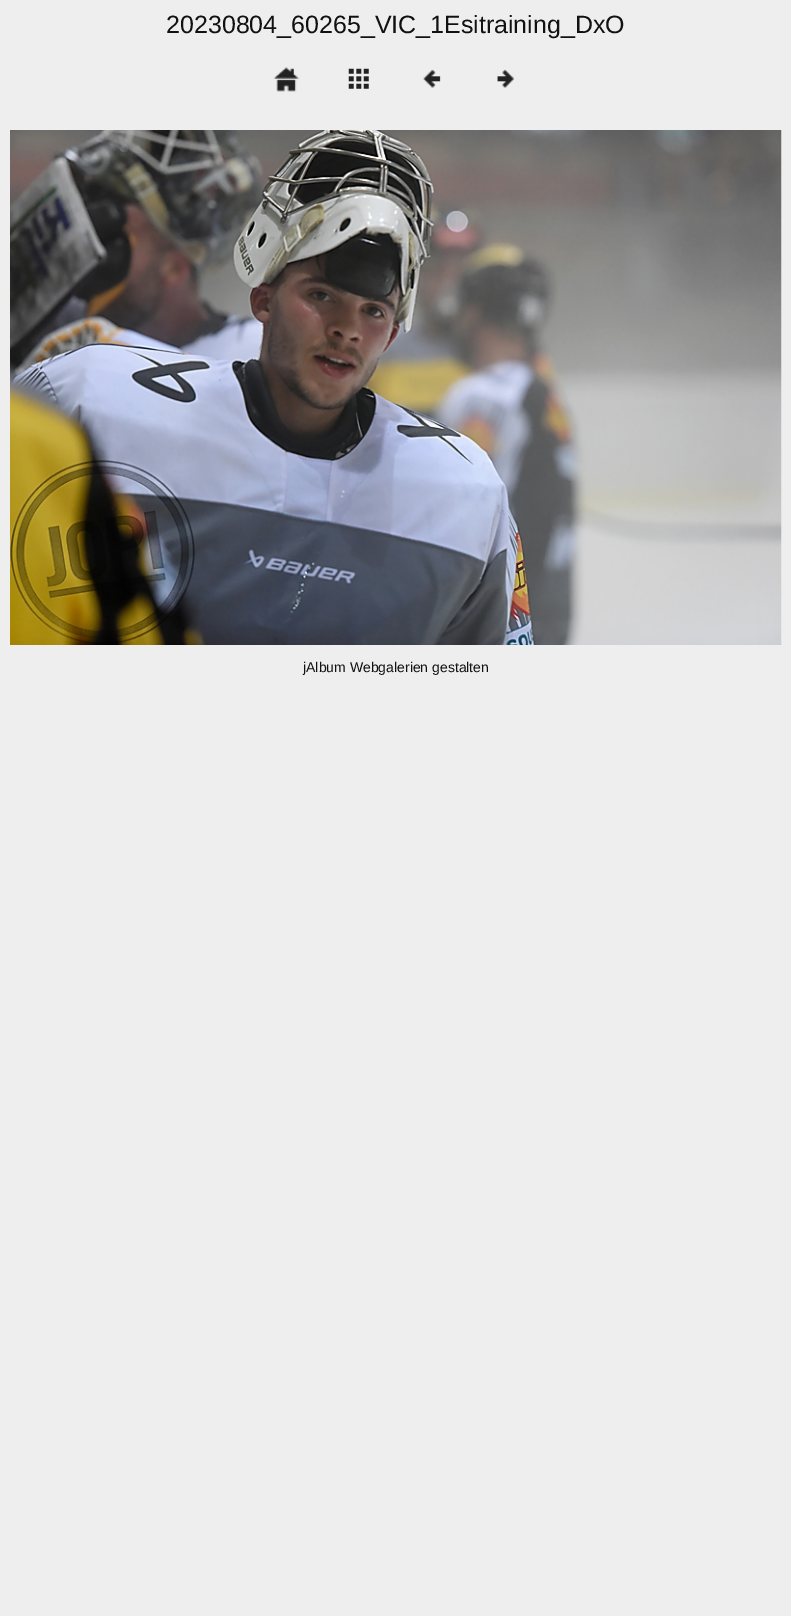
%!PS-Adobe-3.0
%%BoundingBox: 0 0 791 1616
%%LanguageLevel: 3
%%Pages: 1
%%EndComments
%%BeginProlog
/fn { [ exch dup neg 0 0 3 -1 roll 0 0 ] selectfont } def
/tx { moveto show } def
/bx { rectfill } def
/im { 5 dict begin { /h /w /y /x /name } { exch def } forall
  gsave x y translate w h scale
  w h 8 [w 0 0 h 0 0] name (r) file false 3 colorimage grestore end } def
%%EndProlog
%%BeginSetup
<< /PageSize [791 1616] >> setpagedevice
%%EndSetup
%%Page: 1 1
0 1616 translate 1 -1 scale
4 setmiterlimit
0.933 setgray
0 0 791 1616 bx
/LiberationSans-Regular 25 fn
0.067 setgray
(20230804_60265_VIC_1Esitraining_DxO) 166 33 tx
(image0.raw) 273 67 26 25 im
(image1.raw) 348 68 21 21 im
(image2.raw) 423 69 18 19 im
(image3.raw) 497 69 17 19 im
(image4.raw) 10 130 772 515 im
/LiberationSans-Regular 14 fn
(jAlbum Webgalerien gestalten) 303 672 tx
showpage
%%EOF
